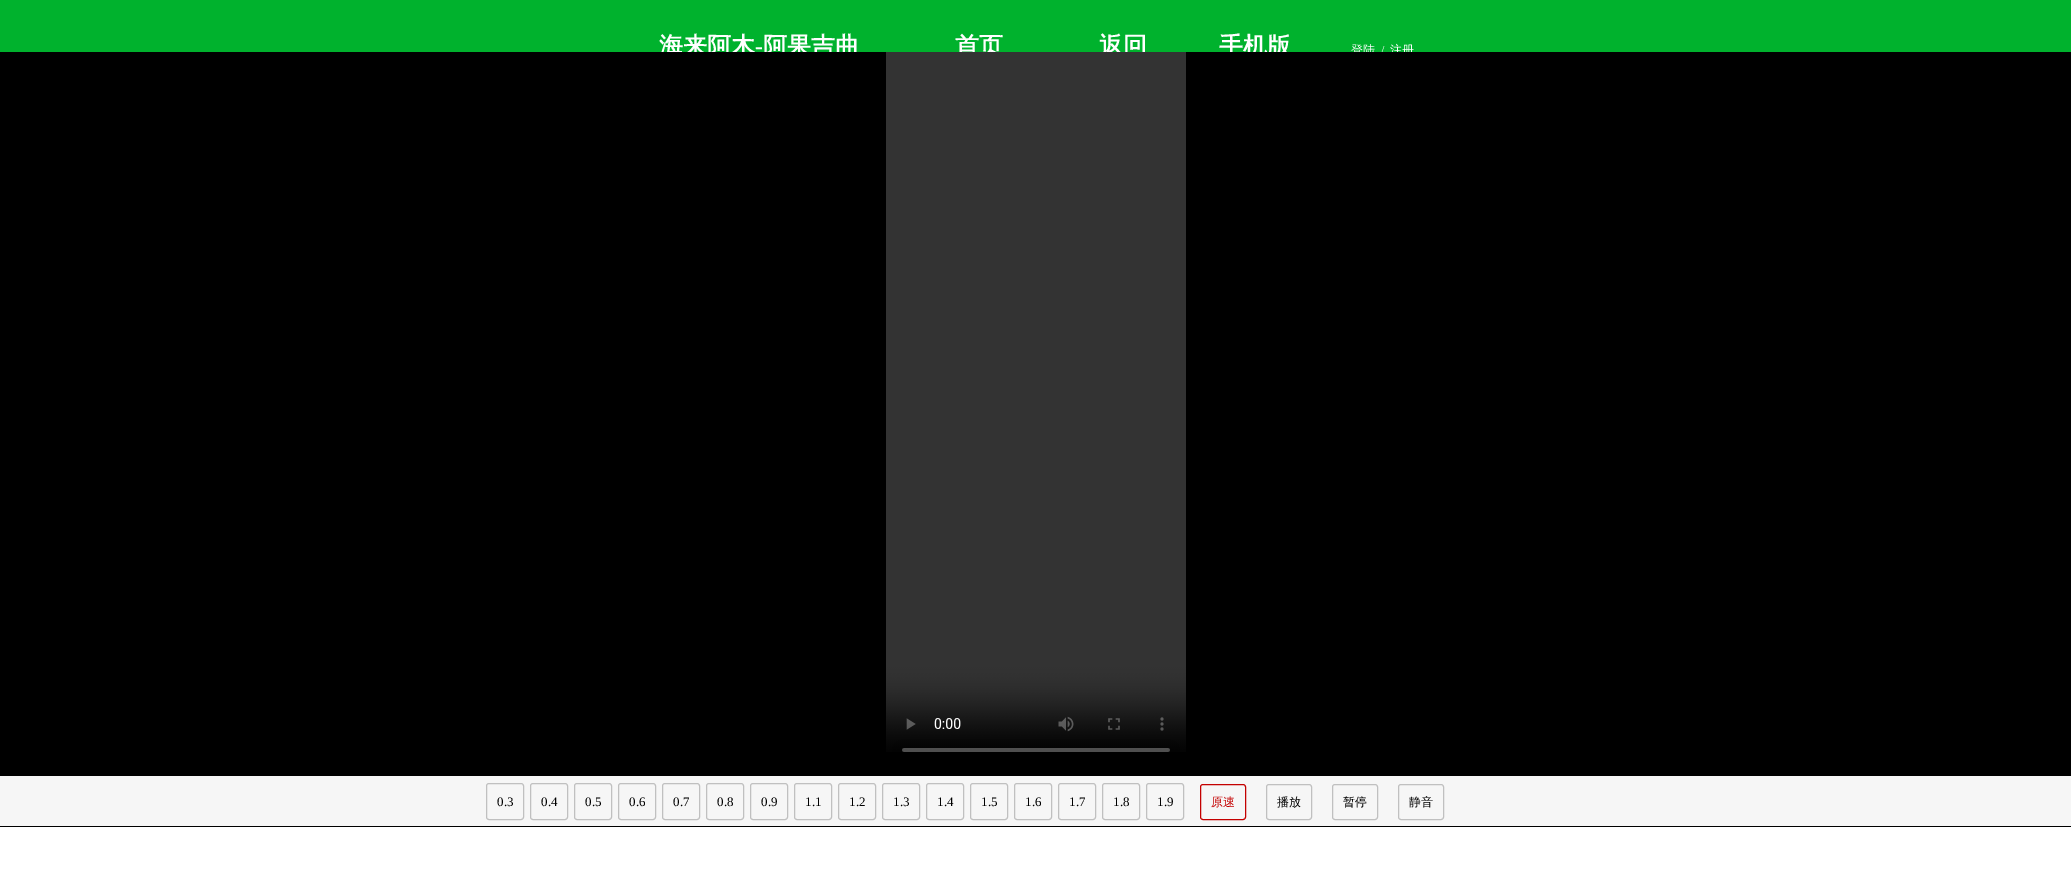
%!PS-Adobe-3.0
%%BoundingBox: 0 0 2071 884
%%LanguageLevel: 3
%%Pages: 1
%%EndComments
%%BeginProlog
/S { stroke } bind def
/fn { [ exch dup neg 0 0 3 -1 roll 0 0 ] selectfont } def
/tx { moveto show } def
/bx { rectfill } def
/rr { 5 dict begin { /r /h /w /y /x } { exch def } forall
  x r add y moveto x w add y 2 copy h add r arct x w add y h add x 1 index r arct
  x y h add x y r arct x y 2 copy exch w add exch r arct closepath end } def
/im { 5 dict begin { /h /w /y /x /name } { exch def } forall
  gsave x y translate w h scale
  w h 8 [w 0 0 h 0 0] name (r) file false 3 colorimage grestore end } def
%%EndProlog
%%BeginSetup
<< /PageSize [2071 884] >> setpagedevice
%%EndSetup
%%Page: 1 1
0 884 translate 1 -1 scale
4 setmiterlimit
1 setgray
0 0 2071 884 bx
0 0.698 0.176 setrgbcolor
0 0 2071 52 bx
/WenQuanYiZenHei-Bold 24 fn
1 setgray
(海来阿木) 659 54 tx
/LiberationSerif-Bold 24 fn
(-) 755 54 tx
/WenQuanYiZenHei-Bold 24 fn
(阿果吉曲) 763 54 tx
(首页) 955 54 tx
(返回) 1099 54 tx
(手机版) 1219 54 tx
/WenQuanYiZenHei-Medium 12 fn
(登陆) 1351 54 tx
/LiberationSerif-Regular 12 fn
(/) 1381 54 tx
/WenQuanYiZenHei-Medium 12 fn
(注册) 1390 54 tx
0 setgray
0 52 2071 724 bx
(image0.raw) 886 52 300 700 im
0.965 setgray
0 776 2071 50 bx
0 setgray
0 826 2071 1 bx
0.753 setgray
486.5 783.5 37 36 2.5 rr S
/LiberationSerif-Regular 13 fn
0 setgray
(0.3) 497 806 tx
0.753 setgray
530.5 783.5 37 36 2.5 rr S
0 setgray
(0.4) 541 806 tx
0.753 setgray
574.5 783.5 37 36 2.5 rr S
0 setgray
(0.5) 585 806 tx
0.753 setgray
618.5 783.5 37 36 2.5 rr S
0 setgray
(0.6) 629 806 tx
0.753 setgray
662.5 783.5 37 36 2.5 rr S
0 setgray
(0.7) 673 806 tx
0.753 setgray
706.5 783.5 37 36 2.5 rr S
0 setgray
(0.8) 717 806 tx
0.753 setgray
750.5 783.5 37 36 2.5 rr S
0 setgray
(0.9) 761 806 tx
0.753 setgray
794.5 783.5 37 36 2.5 rr S
0 setgray
(1.1) 805 806 tx
0.753 setgray
838.5 783.5 37 36 2.5 rr S
0 setgray
(1.2) 849 806 tx
0.753 setgray
882.5 783.5 37 36 2.5 rr S
0 setgray
(1.3) 893 806 tx
0.753 setgray
926.5 783.5 37 36 2.5 rr S
0 setgray
(1.4) 937 806 tx
0.753 setgray
970.5 783.5 37 36 2.5 rr S
0 setgray
(1.5) 981 806 tx
0.753 setgray
1014.5 783.5 37 36 2.5 rr S
0 setgray
(1.6) 1025 806 tx
0.753 setgray
1058.5 783.5 37 36 2.5 rr S
0 setgray
(1.7) 1069 806 tx
0.753 setgray
1102.5 783.5 37 36 2.5 rr S
0 setgray
(1.8) 1113 806 tx
0.753 setgray
1146.5 783.5 37 36 2.5 rr S
0 setgray
(1.9) 1157 806 tx
0.769 0 0 setrgbcolor
1200.5 784.5 45 35 2.5 rr S
/WenQuanYiZenHei-Medium 12 fn
(原速) 1211 806 tx
0.753 setgray
1266.5 784.5 45 35 2.5 rr S
0 setgray
(播放) 1277 806 tx
0.753 setgray
1332.5 784.5 45 35 2.5 rr S
0 setgray
(暂停) 1343 806 tx
0.753 setgray
1398.5 784.5 45 35 2.5 rr S
0 setgray
(静音) 1409 806 tx
showpage
%%EOF
